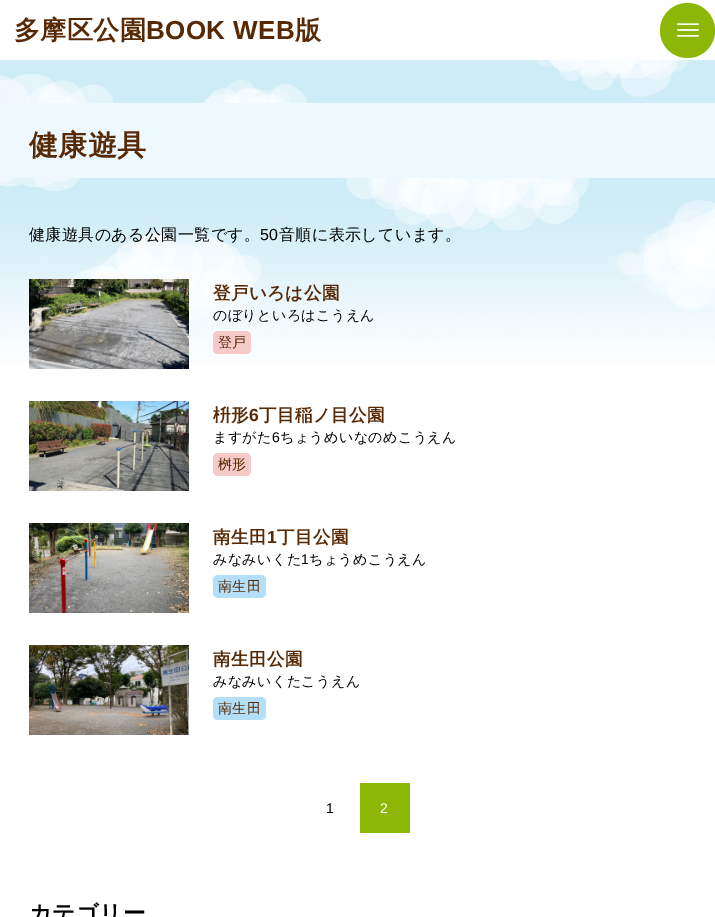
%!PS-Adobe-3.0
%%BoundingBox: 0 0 715 917
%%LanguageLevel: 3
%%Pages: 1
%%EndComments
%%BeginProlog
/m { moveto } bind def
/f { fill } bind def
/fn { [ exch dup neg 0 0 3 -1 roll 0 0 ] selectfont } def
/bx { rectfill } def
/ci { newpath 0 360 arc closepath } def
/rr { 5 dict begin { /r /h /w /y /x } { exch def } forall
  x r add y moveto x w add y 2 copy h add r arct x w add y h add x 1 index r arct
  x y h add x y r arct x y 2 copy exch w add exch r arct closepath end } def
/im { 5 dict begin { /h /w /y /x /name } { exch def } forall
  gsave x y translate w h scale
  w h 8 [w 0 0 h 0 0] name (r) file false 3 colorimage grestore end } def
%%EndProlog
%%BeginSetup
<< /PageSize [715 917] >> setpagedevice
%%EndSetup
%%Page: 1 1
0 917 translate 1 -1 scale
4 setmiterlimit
1 setgray
0 0 715 917 bx
/WenQuanYiZenHei-Bold 26 fn
0.341 0.165 0.02 setrgbcolor
14 39 m 0.4 0 (多摩区公園) ashow
/LiberationSans-Bold 26 fn
146 39 m 0.4 0 (BOOK WEB) ashow
/WenQuanYiZenHei-Bold 26 fn
295 39 m 0.4 0 (版) ashow
0.549 0.718 0.027 setrgbcolor
687.5 30.5 27.5 ci f
(image0.raw) 677 23 22 14 im
(image1.raw) 0 60 715 303 im
0.929 0.976 0.996 setrgbcolor
0 103 715 75 bx
/WenQuanYiZenHei-Bold 29 fn
0.341 0.165 0.02 setrgbcolor
29 155 m 0.4 0 (健康遊具) ashow
/WenQuanYiZenHei-Medium 16 fn
0 setgray
29 240 m 0.4 0 (健康遊具のある公園一覧です。) ashow
/LiberationSans-Regular 16 fn
260 240 m 0.4 0 (50) ashow
/WenQuanYiZenHei-Medium 16 fn
279 240 m 0.4 0 (音順に表示しています。) ashow
(image2.raw) 29 279 160 90 im
/WenQuanYiZenHei-Bold 17.5 fn
0.341 0.165 0.02 setrgbcolor
213 299 m 0.4 0 (登戸いろは公園) ashow
/WenQuanYiZenHei-Medium 14 fn
0 setgray
213 320 m 0.4 0 (のぼりといろはこうえん) ashow
0.961 0.792 0.788 setrgbcolor
213 331 38 23 5 rr f
0.341 0.165 0.02 setrgbcolor
218 347 m 0.4 0 (登戸) ashow
(image3.raw) 29 401 160 90 im
/WenQuanYiZenHei-Bold 17.5 fn
213 421 m 0.4 0 (枡形) ashow
/LiberationSans-Bold 17.5 fn
249 421 m 0.4 0 (6) ashow
/WenQuanYiZenHei-Bold 17.5 fn
259 421 m 0.4 0 (丁目稲ノ目公園) ashow
/WenQuanYiZenHei-Medium 14 fn
0 setgray
213 442 m 0.4 0 (ますがた) ashow
/LiberationSans-Regular 14 fn
272 442 m 0.4 0 (6) ashow
/WenQuanYiZenHei-Medium 14 fn
280 442 m 0.4 0 (ちょうめいなのめこうえん) ashow
0.961 0.792 0.788 setrgbcolor
213 453 38 23 5 rr f
0.341 0.165 0.02 setrgbcolor
218 469 m 0.4 0 (桝形) ashow
(image4.raw) 29 523 160 90 im
/WenQuanYiZenHei-Bold 17.5 fn
213 543 m 0.4 0 (南生田) ashow
/LiberationSans-Bold 17.5 fn
267 543 m 0.4 0 (1) ashow
/WenQuanYiZenHei-Bold 17.5 fn
277 543 m 0.4 0 (丁目公園) ashow
/WenQuanYiZenHei-Medium 14 fn
0 setgray
213 564 m 0.4 0 (みなみいくた) ashow
/LiberationSans-Regular 14 fn
301 564 m 0.4 0 (1) ashow
/WenQuanYiZenHei-Medium 14 fn
309 564 m 0.4 0 (ちょうめこうえん) ashow
0.702 0.875 0.973 setrgbcolor
213 575 53 23 5 rr f
0.341 0.165 0.02 setrgbcolor
218 591 m 0.4 0 (南生田) ashow
(image5.raw) 29 645 160 90 im
/WenQuanYiZenHei-Bold 17.5 fn
213 665 m 0.4 0 (南生田公園) ashow
/WenQuanYiZenHei-Medium 14 fn
0 setgray
213 686 m 0.4 0 (みなみいくたこうえん) ashow
0.702 0.875 0.973 setrgbcolor
213 697 53 23 5 rr f
0.341 0.165 0.02 setrgbcolor
218 713 m 0.4 0 (南生田) ashow
/LiberationSans-Regular 14 fn
0 setgray
326 813 m 0.4 0 (1) ashow
0.549 0.718 0.027 setrgbcolor
360 783 50 50 bx
1 setgray
380 813 m 0.4 0 (2) ashow
/WenQuanYiZenHei-Bold 22.5 fn
0 setgray
29 921 m 0.4 0 (カテゴリー) ashow
showpage
%%EOF
